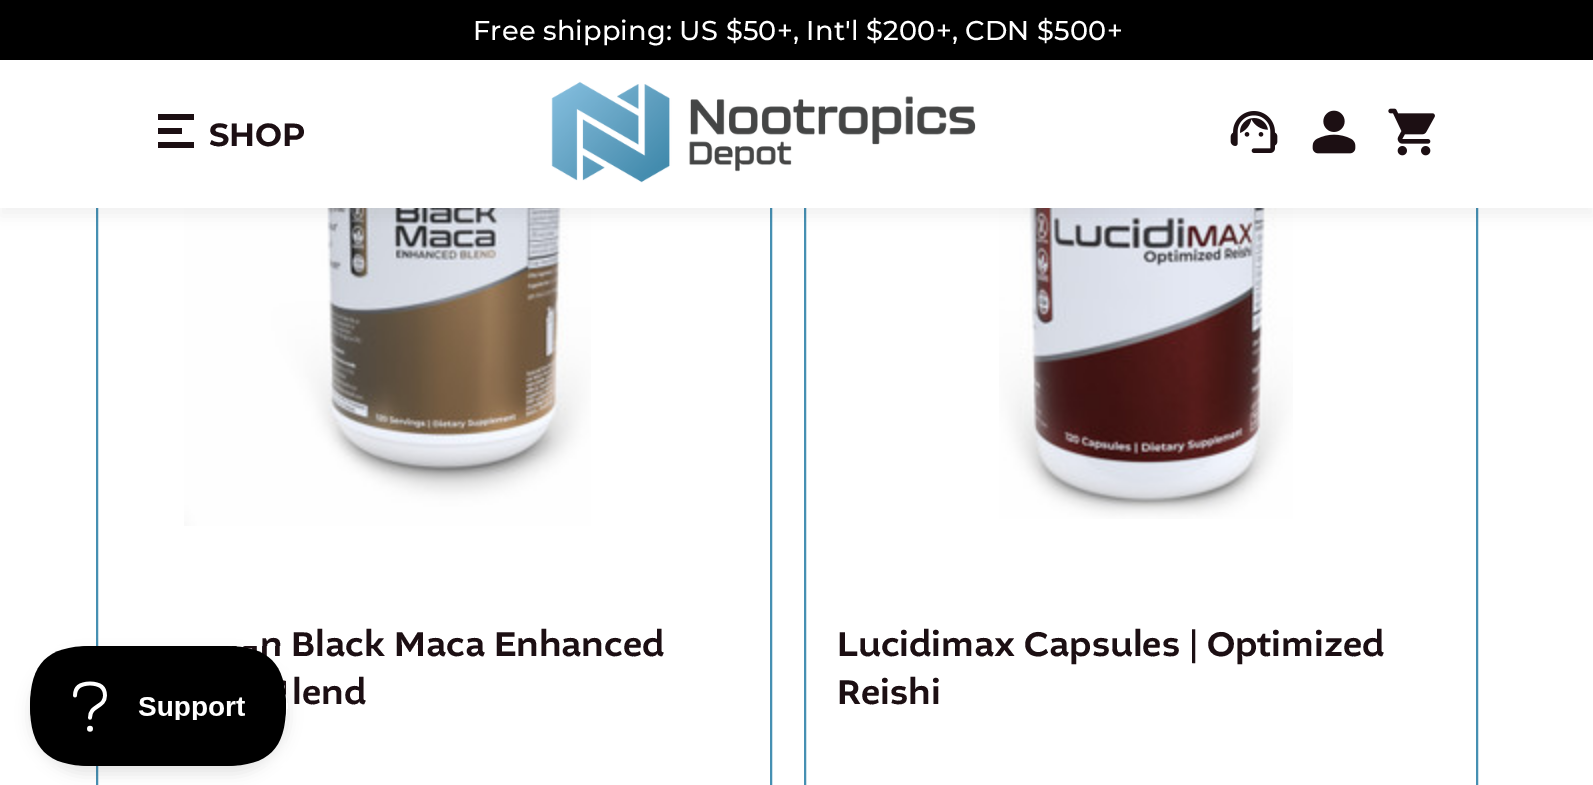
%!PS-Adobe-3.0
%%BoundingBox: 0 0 1593 785
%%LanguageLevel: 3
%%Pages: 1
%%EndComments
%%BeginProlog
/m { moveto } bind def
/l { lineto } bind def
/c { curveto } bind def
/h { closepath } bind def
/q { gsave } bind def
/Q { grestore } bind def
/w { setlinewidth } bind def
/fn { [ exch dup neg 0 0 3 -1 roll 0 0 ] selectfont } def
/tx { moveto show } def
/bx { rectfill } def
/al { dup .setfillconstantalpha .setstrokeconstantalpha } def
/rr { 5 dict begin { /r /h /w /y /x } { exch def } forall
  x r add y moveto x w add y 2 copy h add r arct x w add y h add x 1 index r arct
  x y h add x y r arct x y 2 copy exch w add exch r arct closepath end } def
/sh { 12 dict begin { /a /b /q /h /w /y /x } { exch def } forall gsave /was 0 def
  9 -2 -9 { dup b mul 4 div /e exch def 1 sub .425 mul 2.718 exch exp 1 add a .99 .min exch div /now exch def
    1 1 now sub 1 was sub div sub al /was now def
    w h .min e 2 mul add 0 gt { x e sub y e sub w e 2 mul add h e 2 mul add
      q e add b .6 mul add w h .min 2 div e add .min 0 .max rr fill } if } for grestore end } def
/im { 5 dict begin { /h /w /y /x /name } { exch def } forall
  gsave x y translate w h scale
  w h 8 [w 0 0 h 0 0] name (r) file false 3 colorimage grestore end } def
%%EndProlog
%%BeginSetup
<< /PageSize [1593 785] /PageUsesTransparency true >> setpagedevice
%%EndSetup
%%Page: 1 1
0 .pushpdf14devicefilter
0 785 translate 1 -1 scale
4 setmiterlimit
1 setgray
0 0 1593 785 bx
0.275 0.565 0.698 setrgbcolor
2 w
97 -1 674 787 rectstroke
(image5.raw) 184 208 407 318 im
805 -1 672 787 rectstroke
(image6.raw) 999 208 294 311 im
0 setgray
0 8 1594 208 0 8 0.06 sh
0 0 1593 60 bx
/Montserrat-Medium 27.2 fn
1 setgray
473 40 m 0.15 0 (Free shipping: US $50+, Int'l $200+, CDN $500+) ashow
0 60 1593 148 bx
0.11 0.059 0.075 setrgbcolor
158 128 24 6 bx
158 114 36 6 bx
158 142 36 6 bx
/Montserrat-Bold 32 fn
(SHOP) 209 146 tx
(image0.raw) 551 81 425 102 im
(image1.raw) 1230 111 48 42 im
(image2.raw) 1312 110 44 44 im
(image3.raw) 1388 108 47 48 im
q
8 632 m 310 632 l 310 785 l 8 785 l h 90 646 m 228 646 l 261 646 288 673 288 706 c 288 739 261 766 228 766 c 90 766 l 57 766 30 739 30 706 c 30 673 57 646 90 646 c h eoclip newpath
0 setgray
30 654 258 120 60 7 0.1 sh
Q
/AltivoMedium-Medium 36 fn
(n Black Maca Enhanced) 260 656 tx
(image4.raw) 30 646 256 120 im
(lend) 292 704 tx
(Lucidimax Capsules | Optimized) 837 656 tx
(Reishi) 837 704 tx
.poppdf14devicefilter showpage
%%EOF
